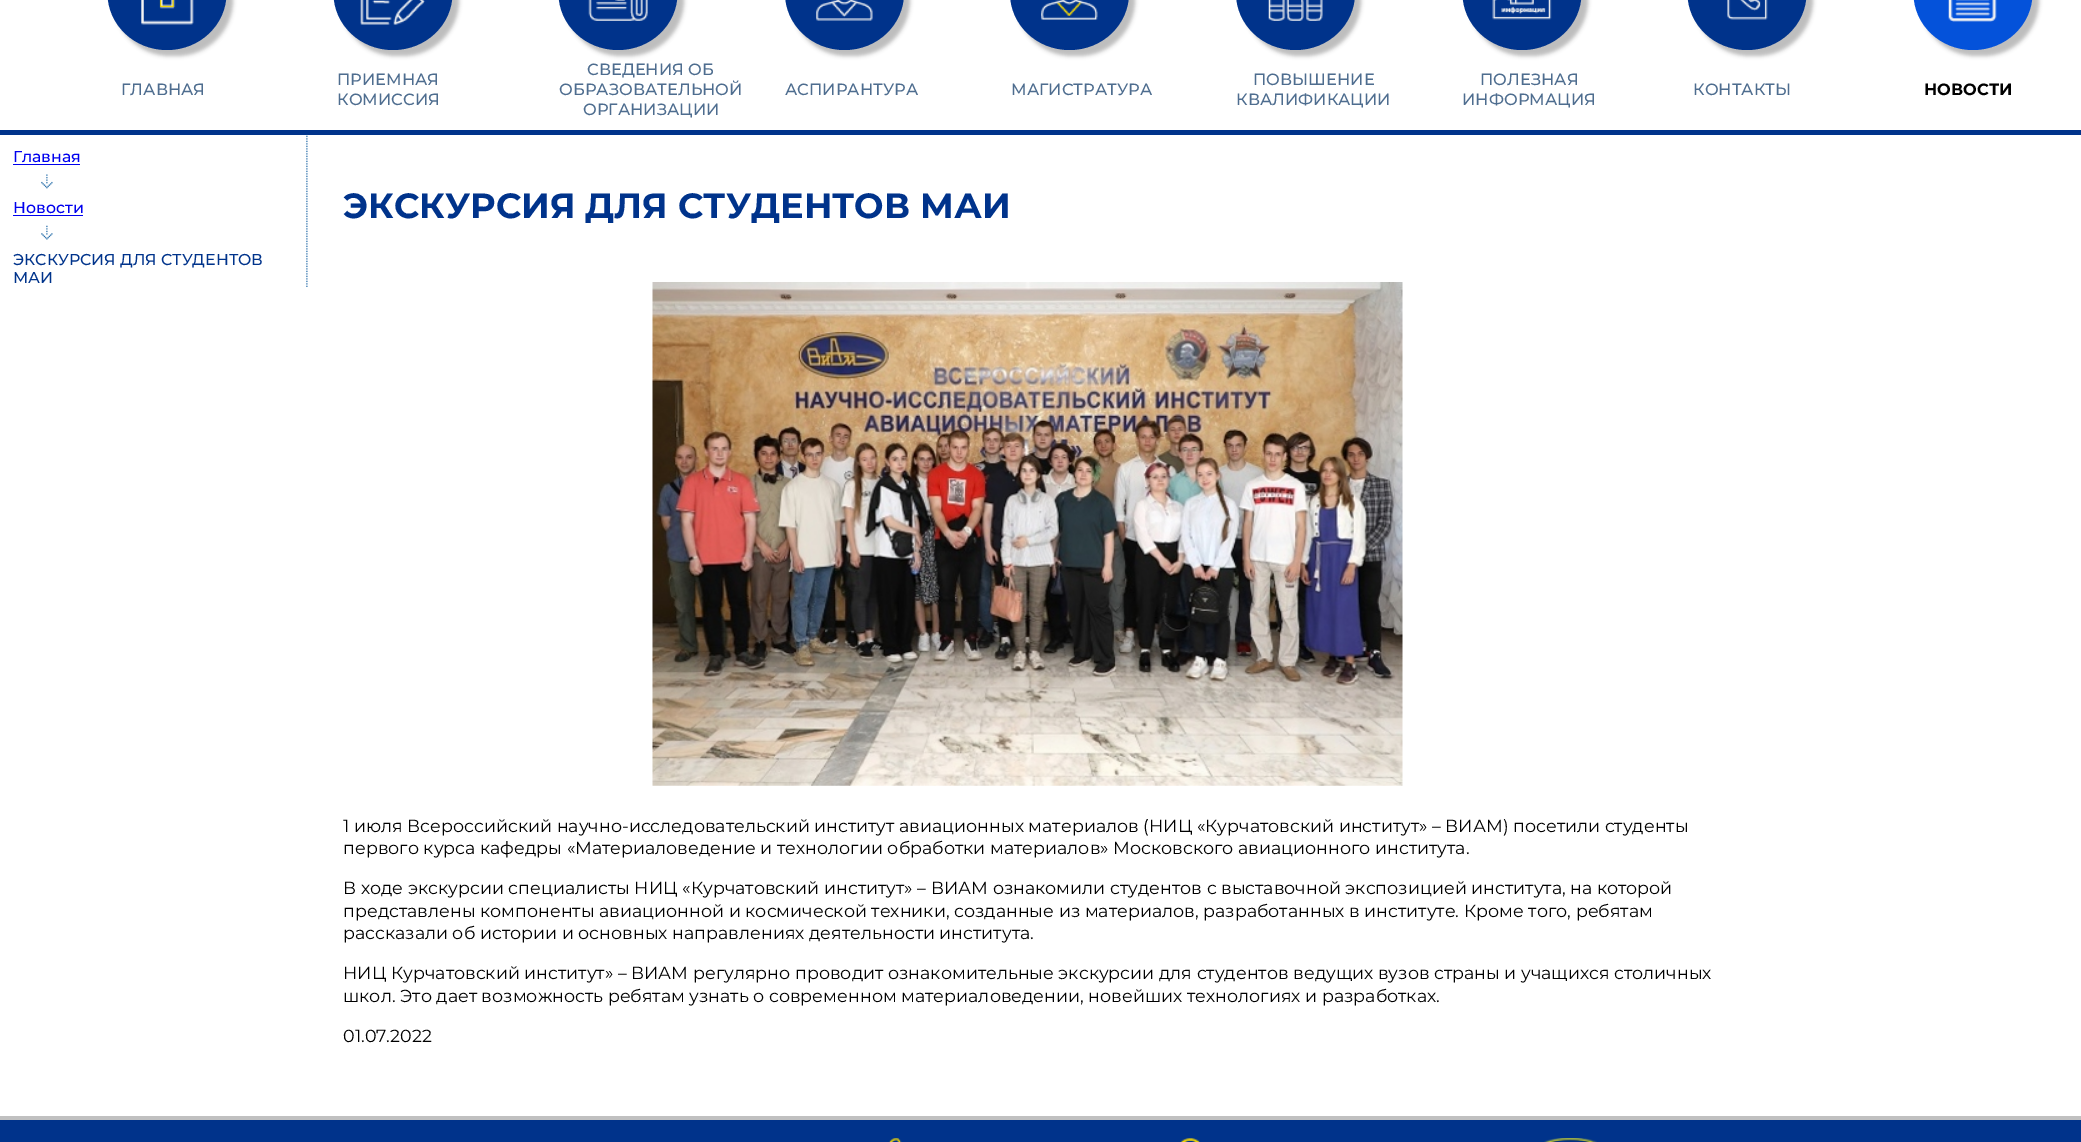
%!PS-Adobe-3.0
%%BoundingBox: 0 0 2081 1142
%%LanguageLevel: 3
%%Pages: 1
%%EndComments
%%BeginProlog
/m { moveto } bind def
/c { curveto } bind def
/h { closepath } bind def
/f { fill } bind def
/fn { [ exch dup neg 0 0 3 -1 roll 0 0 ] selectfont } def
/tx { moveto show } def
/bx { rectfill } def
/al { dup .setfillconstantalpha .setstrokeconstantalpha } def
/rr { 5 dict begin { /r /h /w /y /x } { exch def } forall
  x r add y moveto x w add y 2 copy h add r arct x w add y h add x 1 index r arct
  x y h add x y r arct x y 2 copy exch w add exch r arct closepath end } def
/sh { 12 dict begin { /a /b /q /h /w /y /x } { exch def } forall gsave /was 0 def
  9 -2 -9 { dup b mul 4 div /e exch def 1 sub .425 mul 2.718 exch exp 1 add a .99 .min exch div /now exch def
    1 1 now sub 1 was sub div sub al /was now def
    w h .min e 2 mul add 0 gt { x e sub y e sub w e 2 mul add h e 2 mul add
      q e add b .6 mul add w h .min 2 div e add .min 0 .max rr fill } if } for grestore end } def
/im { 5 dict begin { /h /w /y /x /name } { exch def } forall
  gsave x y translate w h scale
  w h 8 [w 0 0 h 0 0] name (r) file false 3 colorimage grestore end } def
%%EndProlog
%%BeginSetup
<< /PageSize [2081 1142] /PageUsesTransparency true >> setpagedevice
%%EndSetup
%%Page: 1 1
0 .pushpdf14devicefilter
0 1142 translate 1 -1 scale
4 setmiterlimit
1 setgray
0 0 2081 1142 bx
0 0.2 0.545 setrgbcolor
0 130 2081 5 bx
0.478 setgray
114 -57 119 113 56.5 2 0.5 sh
0 0.2 0.545 setrgbcolor
167 -64 m 200 -64 226.5 -38.5 226.5 -7 c 226.5 24.5 200 50 167 50 c 134 50 107.5 24.5 107.5 -7 c 107.5 -38.5 134 -64 167 -64 c h f
(image0.raw) 141 0 53 25 im
/Montserrat-Medium 16.25 fn
0.306 0.427 0.561 setrgbcolor
(ГЛАВНАЯ) 121 95 tx
0.478 setgray
340 -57 119 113 56.5 2 0.5 sh
0 0.2 0.545 setrgbcolor
393 -64 m 426 -64 452.5 -38.5 452.5 -7 c 452.5 24.5 426 50 393 50 c 360 50 333.5 24.5 333.5 -7 c 333.5 -38.5 360 -64 393 -64 c h f
(image1.raw) 360 0 65 25 im
0.306 0.427 0.561 setrgbcolor
(ПРИЕМНАЯ) 337 85 tx
(КОМИССИЯ) 337 105 tx
0.478 setgray
565 -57 119 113 56.5 2 0.5 sh
0 0.2 0.545 setrgbcolor
618 -64 m 651 -64 677.5 -38.5 677.5 -7 c 677.5 24.5 651 50 618 50 c 585 50 558.5 24.5 558.5 -7 c 558.5 -38.5 585 -64 618 -64 c h f
(image2.raw) 588 0 60 21 im
0.306 0.427 0.561 setrgbcolor
(СВЕДЕНИЯ ОБ) 587 75 tx
(ОБРАЗОВАТЕЛЬНОЙ) 559 95 tx
(ОРГАНИЗАЦИИ) 583 115 tx
0.478 setgray
791 -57 119 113 56.5 2 0.5 sh
0 0.2 0.545 setrgbcolor
844.5 -64 m 877.5 -64 904 -38.5 904 -7 c 904 24.5 877.5 50 844.5 50 c 811.5 50 785 24.5 785 -7 c 785 -38.5 811.5 -64 844.5 -64 c h f
(image3.raw) 816 0 57 21 im
0.306 0.427 0.561 setrgbcolor
(АСПИРАНТУРА) 785 95 tx
0.478 setgray
1016 -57 119 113 56.5 2 0.5 sh
0 0.2 0.545 setrgbcolor
1069.5 -64 m 1102.5 -64 1129 -38.5 1129 -7 c 1129 24.5 1102.5 50 1069.5 50 c 1036.5 50 1010 24.5 1010 -7 c 1010 -38.5 1036.5 -64 1069.5 -64 c h f
(image4.raw) 1041 0 57 20 im
0.306 0.427 0.561 setrgbcolor
(МАГИСТРАТУРА) 1011 95 tx
0.478 setgray
1243 -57 118 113 56.5 2 0.5 sh
0 0.2 0.545 setrgbcolor
1295.5 -64 m 1328.5 -64 1355 -38.5 1355 -7 c 1355 24.5 1328.5 50 1295.5 50 c 1262.5 50 1236 24.5 1236 -7 c 1236 -38.5 1262.5 -64 1295.5 -64 c h f
(image5.raw) 1268 0 55 21 im
0.306 0.427 0.561 setrgbcolor
(ПОВЫШЕНИЕ) 1253 85 tx
(КВАЛИФИКАЦИИ) 1236 105 tx
0.478 setgray
1469 -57 119 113 56.5 2 0.5 sh
0 0.2 0.545 setrgbcolor
1522 -64 m 1555 -64 1581.5 -38.5 1581.5 -7 c 1581.5 24.5 1555 50 1522 50 c 1489 50 1462.5 24.5 1462.5 -7 c 1462.5 -38.5 1489 -64 1522 -64 c h f
(image6.raw) 1492 0 60 20 im
0.306 0.427 0.561 setrgbcolor
(ПОЛЕЗНАЯ) 1480 85 tx
(ИНФОРМАЦИЯ) 1462 105 tx
0.478 setgray
1694 -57 119 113 56.5 2 0.5 sh
0 0.2 0.545 setrgbcolor
1747 -64 m 1780 -64 1806.5 -38.5 1806.5 -7 c 1806.5 24.5 1780 50 1747 50 c 1714 50 1687.5 24.5 1687.5 -7 c 1687.5 -38.5 1714 -64 1747 -64 c h f
(image7.raw) 1727 0 41 20 im
0.306 0.427 0.561 setrgbcolor
(КОНТАКТЫ) 1693 95 tx
0.478 setgray
1920 -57 119 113 56.5 2 0.5 sh
0.016 0.322 0.855 setrgbcolor
1973 -64 m 2006 -64 2032.5 -38.5 2032.5 -7 c 2032.5 24.5 2006 50 1973 50 c 1940 50 1913.5 24.5 1913.5 -7 c 1913.5 -38.5 1940 -64 1973 -64 c h f
(image8.raw) 1948 0 49 22 im
/Montserrat-Bold 16.25 fn
0 setgray
(НОВОСТИ) 1924 95 tx
(image9.raw) 306 134 2 153 im
/Montserrat-Medium 15.75 fn
0 0 0.933 setrgbcolor
(Главная) 13 162 tx
13 164 67 1 bx
(image10.raw) 41 174 12 15 im
(Новости) 13 213 tx
13 215 70 1 bx
(image11.raw) 41 225 12 15 im
0 0.2 0.545 setrgbcolor
(ЭКСКУРСИЯ ДЛЯ СТУДЕНТОВ) 13 265 tx
(МАИ) 13 283 tx
/Montserrat-Bold 35 fn
(ЭКСКУРСИЯ ДЛЯ СТУДЕНТОВ МАИ) 343 218 tx
(image12.raw) 652 282 751 504 im
/Montserrat-Regular 17.5 fn
0 setgray
(1 июля Всероссийский научно-исследовательский институт авиационных материалов \(НИЦ «Курчатовский институт» – ВИАМ\) посетили студенты) 343 832 tx
(первого курса кафедры «Материаловедение и технологии обработки материалов» Московского авиационного института.) 343 854 tx
(В ходе экскурсии специалисты НИЦ «Курчатовский институт» – ВИАМ ознакомили студентов с выставочной экспозицией института, на которой) 343 894 tx
(представлены компоненты авиационной и космической техники, созданные из материалов, разработанных в институте. Кроме того, ребятам) 343 917 tx
(рассказали об истории и основных направлениях деятельности института.) 343 939 tx
(НИЦ Курчатовский институт» – ВИАМ регулярно проводит ознакомительные экскурсии для студентов ведущих вузов страны и учащихся столичных) 343 979 tx
(школ. Это дает возможность ребятам узнать о современном материаловедении, новейших технологиях и разработках.) 343 1002 tx
(01.07.2022) 343 1042 tx
0 0.2 0.545 setrgbcolor
0 1120 2081 22 bx
0.753 setgray
0 1116 2081 4 bx
(image13.raw) 889 1138 13 4 im
(image14.raw) 1180 1138 20 4 im
(image15.raw) 1544 1138 53 4 im
.poppdf14devicefilter showpage
%%EOF
